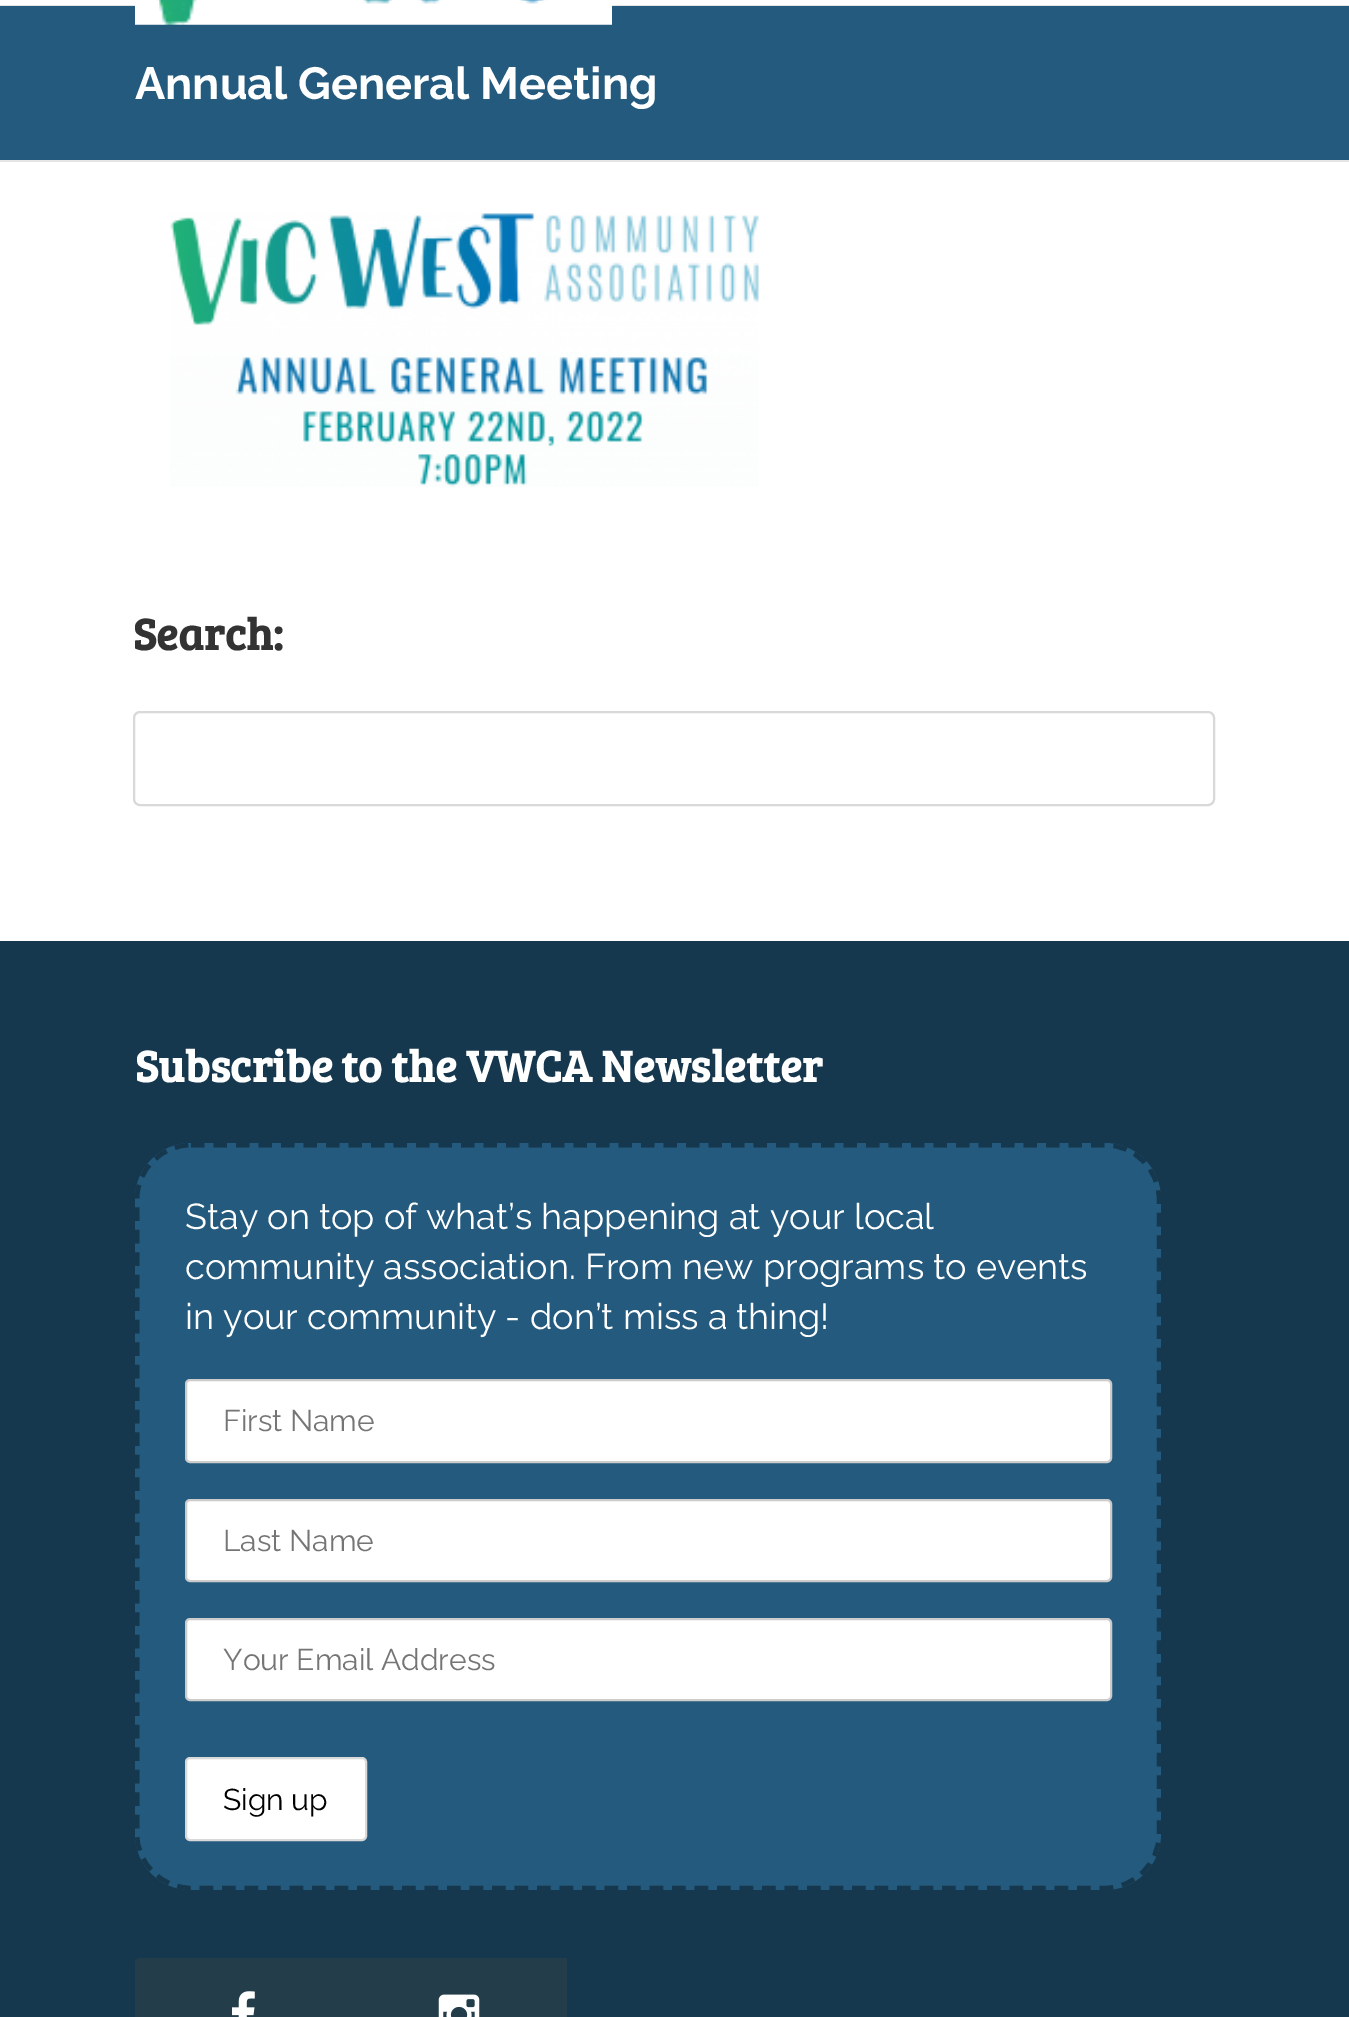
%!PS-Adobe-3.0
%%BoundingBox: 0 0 1349 2017
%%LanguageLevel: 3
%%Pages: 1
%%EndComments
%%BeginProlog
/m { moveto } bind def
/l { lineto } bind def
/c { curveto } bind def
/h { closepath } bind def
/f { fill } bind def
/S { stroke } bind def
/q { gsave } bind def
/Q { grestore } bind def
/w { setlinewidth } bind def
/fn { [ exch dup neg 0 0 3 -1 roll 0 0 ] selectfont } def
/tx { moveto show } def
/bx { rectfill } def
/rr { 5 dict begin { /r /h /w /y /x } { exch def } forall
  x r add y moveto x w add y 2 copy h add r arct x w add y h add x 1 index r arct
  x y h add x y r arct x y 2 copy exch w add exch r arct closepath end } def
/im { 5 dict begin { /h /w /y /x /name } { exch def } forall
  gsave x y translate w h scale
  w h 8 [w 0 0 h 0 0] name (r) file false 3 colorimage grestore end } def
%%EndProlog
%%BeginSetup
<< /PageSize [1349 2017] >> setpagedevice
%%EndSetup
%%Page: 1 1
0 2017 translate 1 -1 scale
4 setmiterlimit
1 setgray
0 0 1349 2017 bx
0.898 setgray
0 5 1349 1 bx
0.141 0.353 0.494 setrgbcolor
0 6 1349 154 bx
(image0.raw) 135 0 477 25 im
0.898 setgray
0 160 1349 2 bx
/Raleway-Bold 45 fn
1 setgray
(Annual General Meeting) 135 99 tx
(image1.raw) 170 213 589 274 im
/BreeSerif-Bold 45 fn
0.2 setgray
(Search:) 133 650 tx
0.851 setgray
2 w
134 712 1080 93 6 rr S
0.086 0.22 0.306 setrgbcolor
0 941 1349 1076 bx
1 setgray
(Subscribe to the VWCA Newsletter) 135 1082 tx
0.137 0.353 0.49 setrgbcolor
135 1143 1026 747 56 rr f
0.086 0.22 0.306 setrgbcolor
4.5 w
[13.5 9] 0 setdash
191 1145 m 1105 1145 l 1134.5 1145 1159 1169.5 1159 1199 c 1159 1834 l 1159 1863.5 1134.5 1888 1105 1888 c 191 1888 l 161.5 1888 137 1863.5 137 1834 c 137 1199 l 137 1169.5 161.5 1145 191 1145 c h S
/Raleway-Regular 36 fn
1 setgray
(Stay on top of what’s happening at your local) 185 1229 tx
(community association. From new programs to events) 185 1279 tx
(in your community - don’t miss a thing!) 185 1329 tx
186 1380 925 82 4 rr q f Q
0.8 setgray
2 w
[] 0 setdash
S
/Raleway-Regular 30 fn
0.459 setgray
(First Name) 223 1431 tx
1 setgray
186 1500 925 81 4 rr q f Q
0.8 setgray
S
0.459 setgray
(Last Name) 223 1551 tx
1 setgray
186 1619 925 81 4 rr q f Q
0.8 setgray
S
0.459 setgray
(Your Email Address) 223 1670 tx
1 setgray
186 1758 180 82 4 rr q f Q
0.851 setgray
S
0 setgray
(Sign up) 223 1810 tx
0.137 0.239 0.29 setrgbcolor
140 1958 m 351 1958 l 351 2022 l 140 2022 l 137 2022 135 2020 135 2017 c 135 1963 l 135 1960 137 1958 140 1958 c h f
(image2.raw) 232 1991 23 26 im
351 1958 216 59 bx
(image3.raw) 438 1994 42 23 im
showpage
%%EOF
